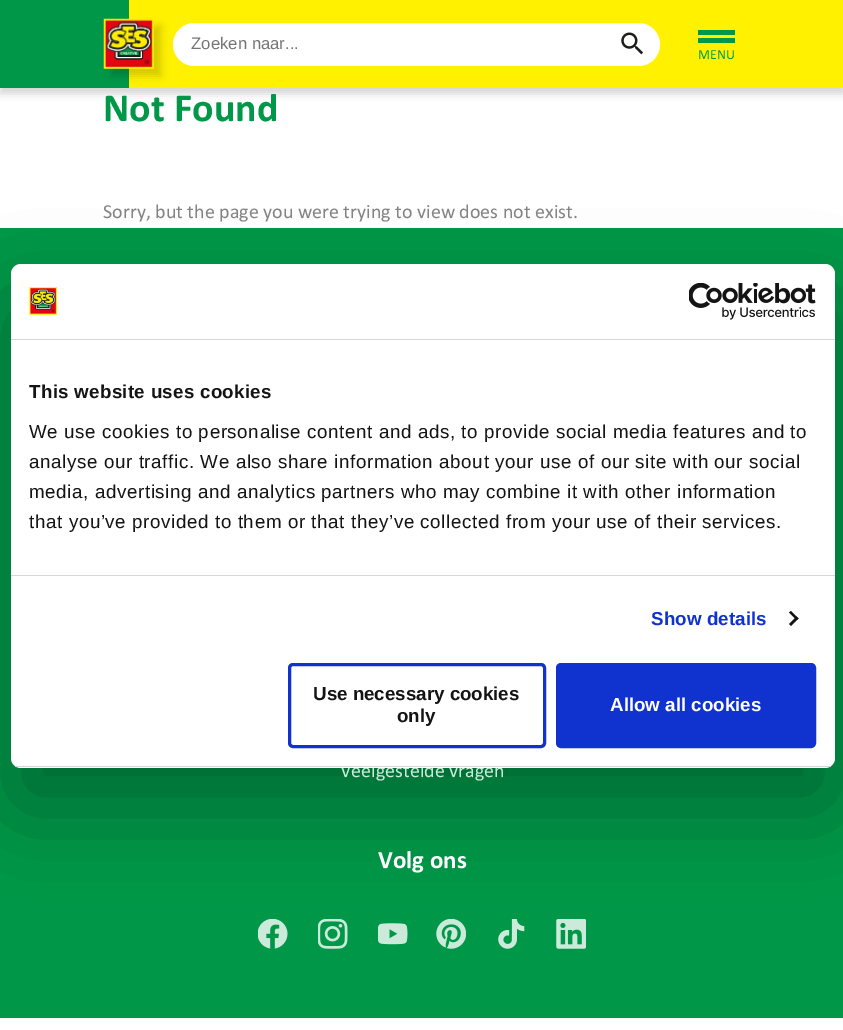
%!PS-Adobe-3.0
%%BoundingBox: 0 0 843 1030
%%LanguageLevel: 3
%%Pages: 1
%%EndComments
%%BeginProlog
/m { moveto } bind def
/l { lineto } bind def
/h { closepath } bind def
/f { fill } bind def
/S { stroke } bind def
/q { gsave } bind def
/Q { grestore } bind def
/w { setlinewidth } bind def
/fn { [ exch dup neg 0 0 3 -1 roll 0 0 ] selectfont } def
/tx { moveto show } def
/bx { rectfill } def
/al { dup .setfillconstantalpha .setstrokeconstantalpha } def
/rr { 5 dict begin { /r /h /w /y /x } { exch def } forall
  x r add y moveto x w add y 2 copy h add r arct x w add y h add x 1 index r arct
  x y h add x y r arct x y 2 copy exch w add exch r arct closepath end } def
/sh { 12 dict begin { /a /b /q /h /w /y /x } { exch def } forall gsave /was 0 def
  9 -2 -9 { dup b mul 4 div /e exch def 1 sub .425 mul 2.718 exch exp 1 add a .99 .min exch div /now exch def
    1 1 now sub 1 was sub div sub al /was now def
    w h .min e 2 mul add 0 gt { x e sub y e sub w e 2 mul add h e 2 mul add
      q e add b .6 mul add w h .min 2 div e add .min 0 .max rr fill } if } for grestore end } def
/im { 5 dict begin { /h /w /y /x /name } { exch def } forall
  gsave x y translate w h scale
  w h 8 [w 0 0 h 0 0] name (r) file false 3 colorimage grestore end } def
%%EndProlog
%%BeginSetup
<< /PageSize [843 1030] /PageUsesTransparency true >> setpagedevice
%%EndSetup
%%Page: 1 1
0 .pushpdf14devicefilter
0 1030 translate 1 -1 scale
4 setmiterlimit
1 setgray
0 0 843 1030 bx
0 setgray
0 6 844 88 0 4 0.16 sh
0 0.596 0.282 setrgbcolor
0 0 129 88 bx
1 0.945 0 setrgbcolor
129 0 714 88 bx
0 setgray
111 26 50 50 0 4 0.16 sh
(image0.raw) 103 18 51 51 im
1 setgray
173 23 487 43 21.5 rr f
/LiberationSans-Regular 16.75 fn
0.459 setgray
(Zoeken naar...) 191 49 tx
(image1.raw) 621 32 22 23 im
0 0.596 0.282 setrgbcolor
698 30 37 5 bx
698 38 37 5 bx
/Calibri-Regular 14 fn
(MENU) 698 59 tx
/Calibri-Bold 40 fn
(Not Found) 103 121 tx
/Calibri-Regular 20 fn
0.518 setgray
(Sorry, but the page you were trying to view does not exist.) 103 218 tx
0 0.596 0.282 setrgbcolor
0 228 843 790 bx
(image4.raw) 258 919 30 30 im
(image5.raw) 318 919 30 30 im
(image6.raw) 378 923 30 22 im
(image7.raw) 436 919 30 30 im
(image8.raw) 498 919 27 30 im
(image9.raw) 556 919 30 30 im
0 setgray
11 304 824 504 10 42.5 0.3 sh
0.8 0.918 0.855 setrgbcolor
(Veelgestelde vragen) 340 777 tx
1 setgray
11 264 824 504 10 rr f
0.839 setgray
11 339 824 1 bx
(image2.raw) 29 287 28 28 im
(image3.raw) 689 283 127 37 im
11 575 824 1 bx
/LiberationSans-Bold 18.75 fn
0.078 setgray
29 398 m 0.3 0 (This website uses cookies) ashow
/LiberationSans-Regular 18.75 fn
29 438 m 0.62 0 (We use cookies to personalise content and ads, to provide social media features and to) ashow
29 468 m 0.62 0 (analyse our traffic. We also share information about your use of our site with our social) ashow
29 498 m 0.62 0 (media, advertising and analytics partners who may combine it with other information) ashow
29 528 m 0.62 0 (that you’ve provided to them or that they’ve collected from your use of their services.) ashow
/LiberationSans-Bold 18.75 fn
0.063 0.196 0.812 setrgbcolor
651 625 m 0.1 0 (Show details) ashow
0.078 setgray
791 611 m 798.5 618.5 l 796.5 620 l 789 612.5 l h f
796.5 616.5 m 798.5 618.5 l 791 626 l 789 624 l h f
q
11 264 824 504 10 rr clip newpath
0.839 setgray
11 766 824 1 bx
Q
0.063 0.196 0.812 setrgbcolor
3 w
289.5 664.5 255 82 3.5 rr S
0.078 setgray
(Use necessary cookies) 313 700 tx
(only) 397 722 tx
0.063 0.196 0.812 setrgbcolor
557.5 664.5 257 82 3.5 rr q f Q
S
1 setgray
(Allow all cookies) 610 711 tx
/Calibri-Bold 25 fn
(Volg ons) 378 868 tx
.poppdf14devicefilter showpage
%%EOF
